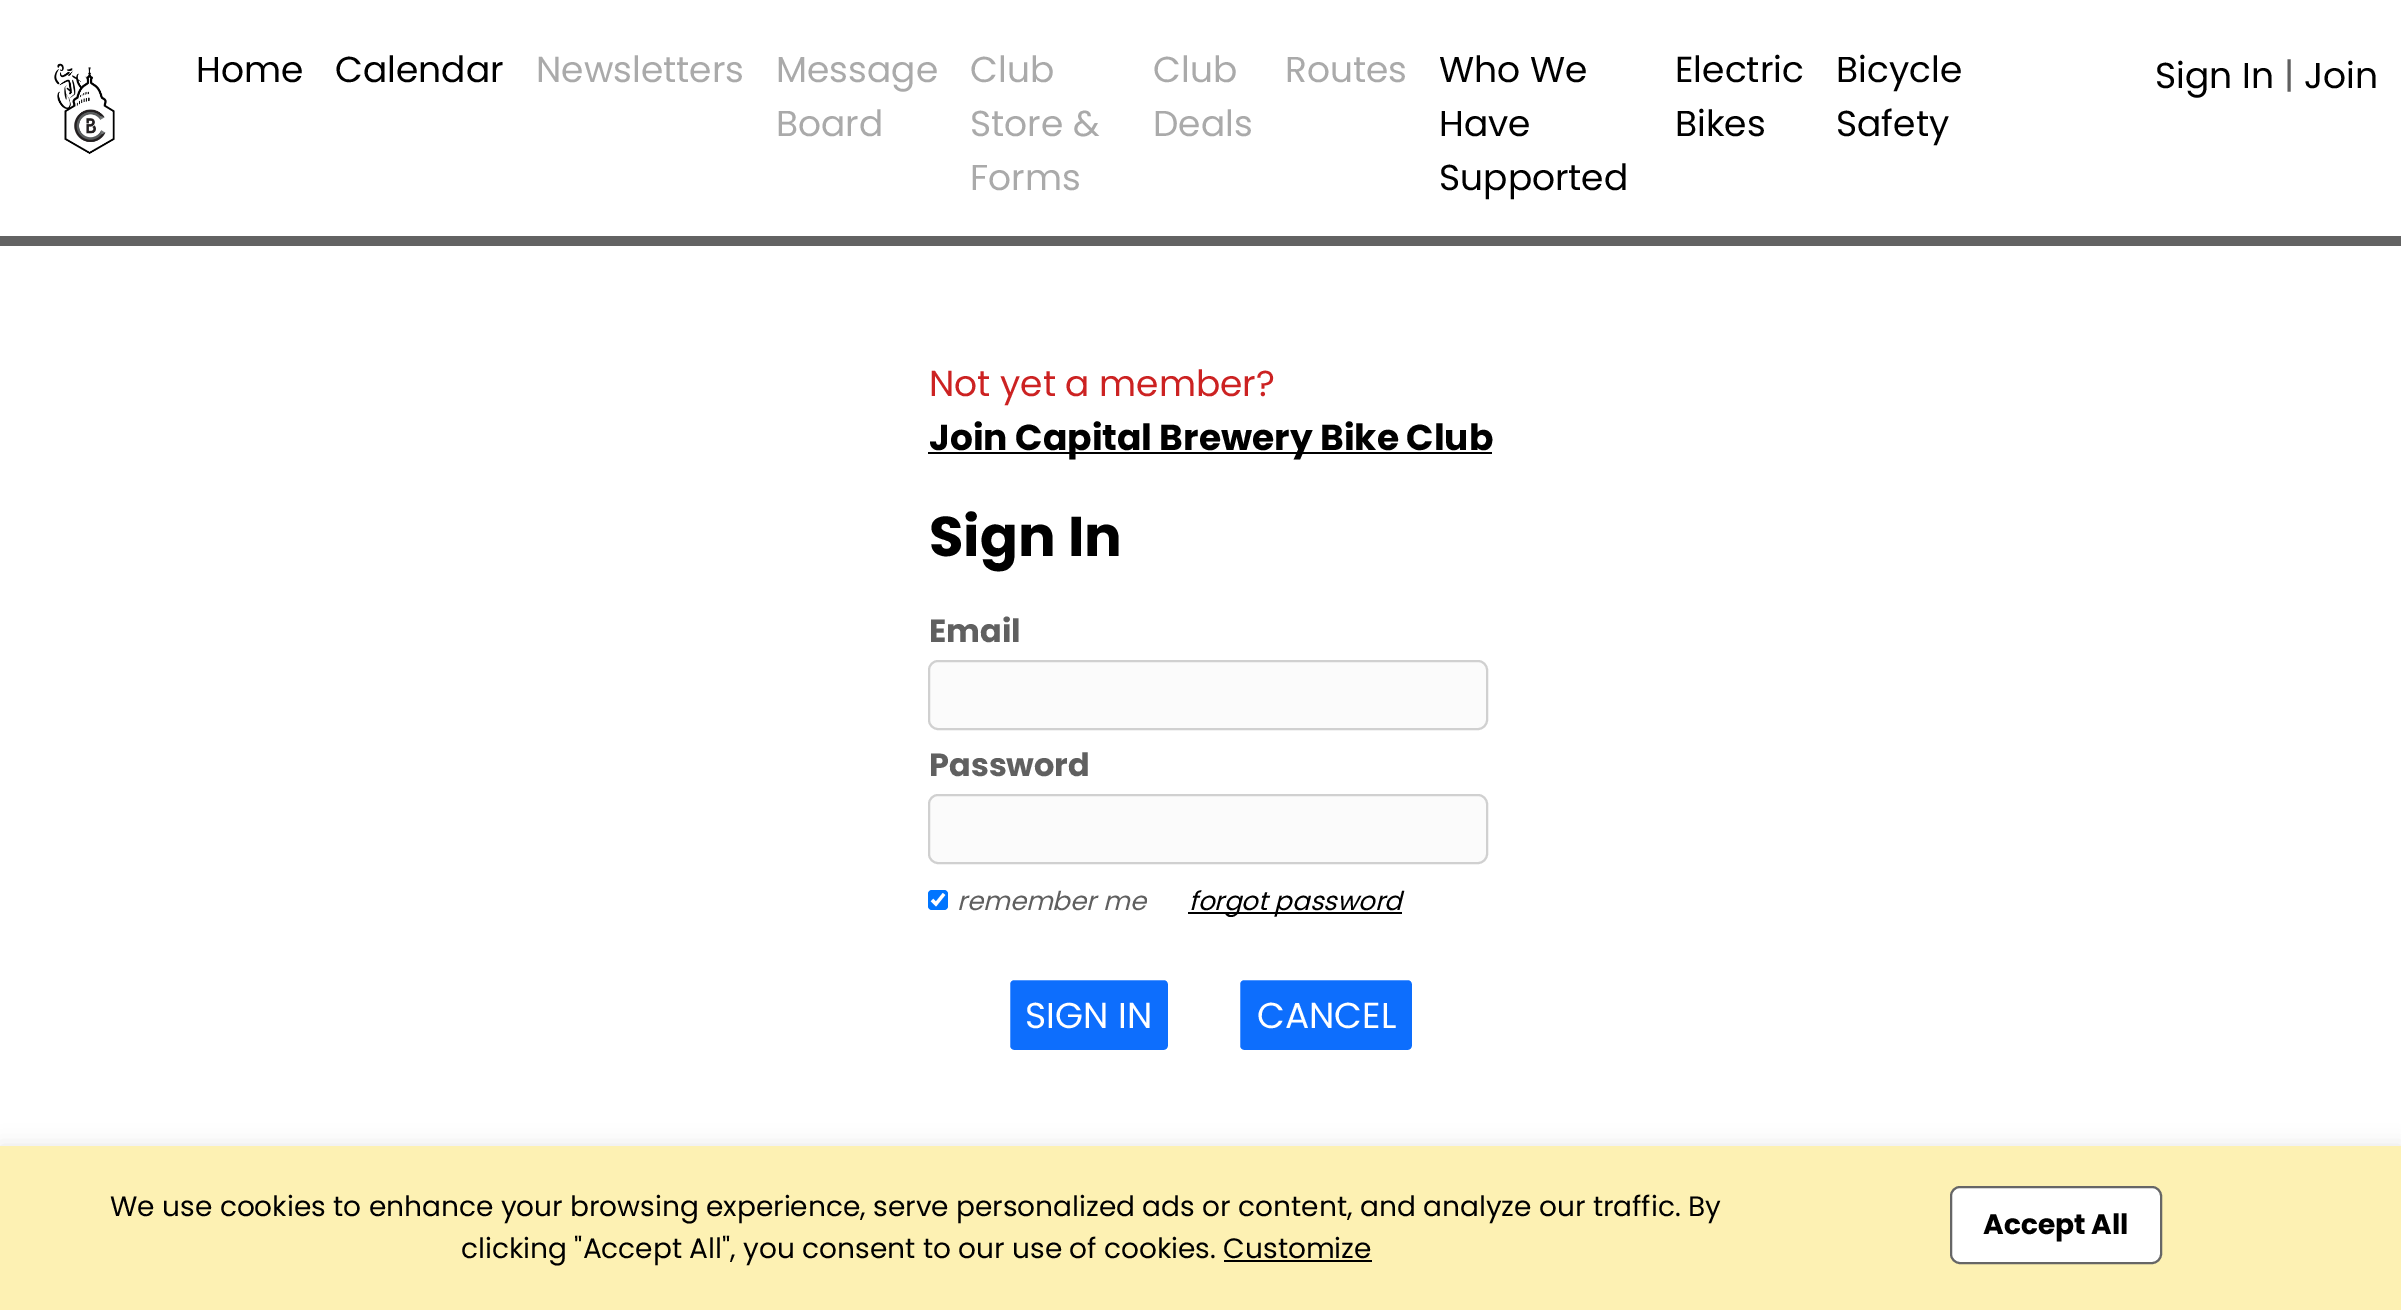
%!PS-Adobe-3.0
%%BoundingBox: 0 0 2401 1310
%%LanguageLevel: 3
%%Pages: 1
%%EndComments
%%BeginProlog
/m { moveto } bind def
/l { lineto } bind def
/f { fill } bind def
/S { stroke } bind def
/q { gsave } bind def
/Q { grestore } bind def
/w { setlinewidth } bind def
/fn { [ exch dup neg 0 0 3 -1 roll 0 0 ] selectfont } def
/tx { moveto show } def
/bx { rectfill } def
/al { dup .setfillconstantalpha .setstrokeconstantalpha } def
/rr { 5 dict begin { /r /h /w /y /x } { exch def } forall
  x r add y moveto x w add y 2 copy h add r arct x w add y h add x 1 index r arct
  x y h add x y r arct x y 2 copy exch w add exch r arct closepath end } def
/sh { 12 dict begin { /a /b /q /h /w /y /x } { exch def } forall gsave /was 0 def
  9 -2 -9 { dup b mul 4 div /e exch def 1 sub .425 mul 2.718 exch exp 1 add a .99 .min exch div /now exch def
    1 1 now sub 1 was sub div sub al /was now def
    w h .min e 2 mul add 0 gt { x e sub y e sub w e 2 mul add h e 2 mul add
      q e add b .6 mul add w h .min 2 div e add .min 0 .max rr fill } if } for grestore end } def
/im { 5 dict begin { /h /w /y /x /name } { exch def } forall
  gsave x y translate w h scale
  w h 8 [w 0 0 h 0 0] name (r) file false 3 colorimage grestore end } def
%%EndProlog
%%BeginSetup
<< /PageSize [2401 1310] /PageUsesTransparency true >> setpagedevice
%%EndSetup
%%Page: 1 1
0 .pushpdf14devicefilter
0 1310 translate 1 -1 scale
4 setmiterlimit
1 setgray
0 0 2401 1310 bx
0.388 setgray
0 236 2401 10 bx
(image0.raw) 54 63 61 92 im
/Poppins-Regular 36 fn
0 setgray
(Home) 196 82 tx
(Calendar) 335 82 tx
0.667 setgray
(Newsletters) 536 82 tx
(Message) 776 82 tx
(Board) 776 136 tx
(Club) 970 82 tx
(Store &) 970 136 tx
(Forms) 970 190 tx
(Club) 1153 82 tx
(Deals) 1153 136 tx
(Routes) 1285 82 tx
0 setgray
(Who We) 1439 82 tx
(Have) 1439 136 tx
(Supported) 1439 190 tx
(Electric) 1675 82 tx
(Bikes) 1675 136 tx
(Bicycle) 1836 82 tx
(Safety) 1836 136 tx
(Sign In) 2155 88 tx
0.376 setgray
(|) 2284 88 tx
0 setgray
(Join) 2304 88 tx
0.8 0.133 0.133 setrgbcolor
(Not yet a member?) 929 396 tx
0 setgray
928 452 564 2 bx
/Poppins-Bold 36 fn
(Join Capital Brewery Bike Club) 929 450 tx
/Poppins-Bold 56 fn
(Sign In) 929 556 tx
/Poppins-Bold 32 fn
0.376 setgray
(Email) 929 642 tx
0.984 setgray
929 661 558 68 9 rr q f Q
0.816 setgray
2 w
S
0.376 setgray
(Password) 929 776 tx
0.984 setgray
929 795 558 68 9 rr q f Q
0.816 setgray
S
0 0.459 1 setrgbcolor
928 890 20 20 4 rr f
1 setgray
3.2 w
932 900 m 936 904 l 944 894 l S
/Poppins-Italic 26 fn
0.376 setgray
(remember me) 957 910 tx
0 setgray
1188 912 214 2 bx
(forgot password) 1189 910 tx
0.051 0.431 0.992 setrgbcolor
1008 978 162 74 6 rr q f Q
1 setgray
4 w
S
/Poppins-Regular 36 fn
(SIGN IN) 1025 1028 tx
0.051 0.431 0.992 setrgbcolor
1238 978 176 74 6 rr q f Q
1 setgray
S
(CANCEL) 1257 1028 tx
0 setgray
0 1146 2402 164 0 10 0.1 sh
0.992 0.945 0.702 setrgbcolor
0 1146 2401 164 bx
/Poppins-Regular 28 fn
0 setgray
(We use cookies to enhance your browsing experience, serve personalized ads or content, and analyze our traffic. By) 110 1216 tx
(clicking "Accept All", you consent to our use of cookies. Customize) 461 1258 tx
1224 1260 148 2 bx
1 setgray
1951 1187 210 76 9 rr q f Q
0.4 setgray
2 w
S
/Poppins-Bold 28 fn
0 setgray
(Accept All) 1983 1234 tx
.poppdf14devicefilter showpage
%%EOF
